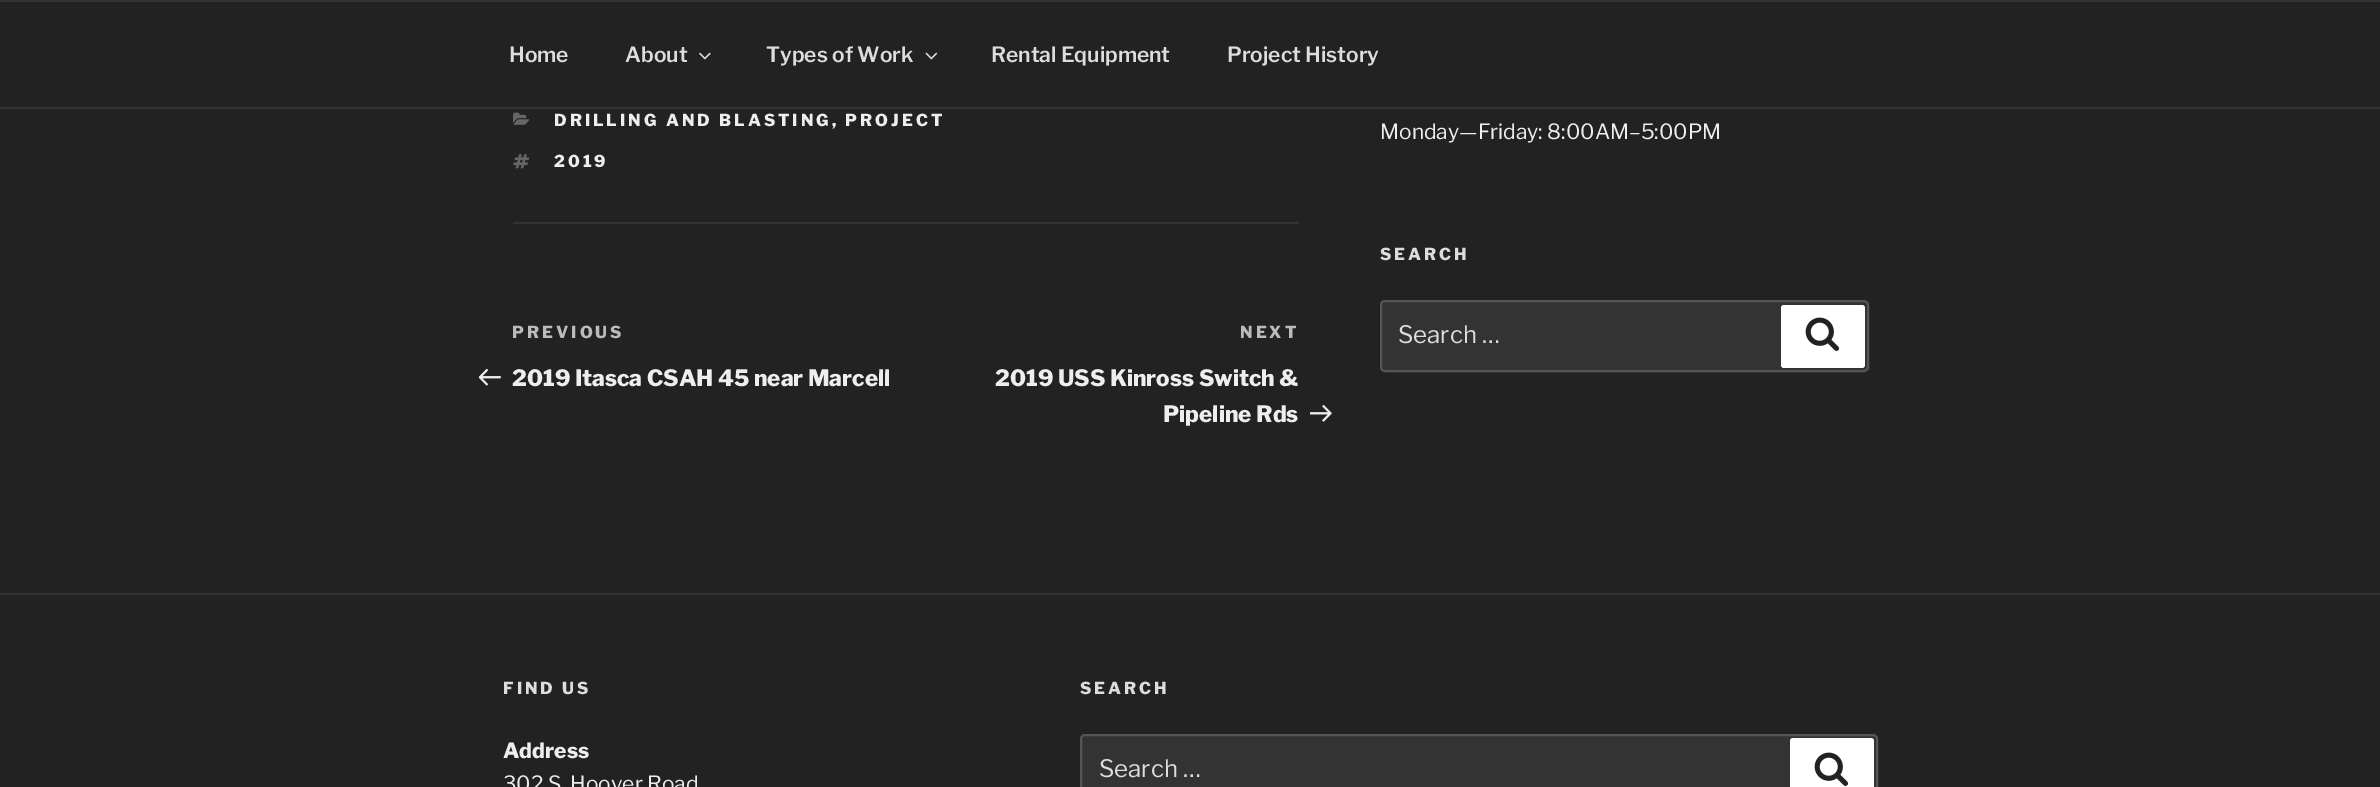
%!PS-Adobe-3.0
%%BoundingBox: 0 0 2380 787
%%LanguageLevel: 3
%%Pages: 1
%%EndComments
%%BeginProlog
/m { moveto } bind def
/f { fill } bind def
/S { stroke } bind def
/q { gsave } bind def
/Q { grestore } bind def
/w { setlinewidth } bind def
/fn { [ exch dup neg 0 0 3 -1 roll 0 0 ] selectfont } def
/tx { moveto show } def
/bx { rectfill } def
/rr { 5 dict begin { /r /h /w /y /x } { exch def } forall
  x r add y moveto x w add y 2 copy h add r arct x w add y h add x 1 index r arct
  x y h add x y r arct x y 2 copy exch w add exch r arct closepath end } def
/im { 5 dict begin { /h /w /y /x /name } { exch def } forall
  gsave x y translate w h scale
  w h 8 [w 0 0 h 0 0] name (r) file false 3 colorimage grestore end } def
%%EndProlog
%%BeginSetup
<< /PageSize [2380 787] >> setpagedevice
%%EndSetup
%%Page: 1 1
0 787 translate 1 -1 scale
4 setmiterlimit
0.133 setgray
0 0 2380 787 bx
0.2 setgray
0 0 2380 2 bx
0 107 2380 2 bx
/LibreFranklin-SemiBold 21 fn
0.867 setgray
(Home) 509 62 tx
(About) 625 62 tx
(image0.raw) 699 52 12 8 im
(Types of Work) 766 62 tx
(image1.raw) 925 52 13 8 im
(Rental Equipment) 991 62 tx
(Project History) 1227 62 tx
0.2 setgray
513 222 786 2 bx
(image2.raw) 513 112 17 13 im
/LibreFranklin-ExtraBold 16.5 fn
0.933 setgray
554 126 m 3 0 (DRILLING AND BLASTING, PROJECT) ashow
(image3.raw) 513 154 17 15 im
554 167 m 3 0 (2019) ashow
0.733 setgray
512 338 m 3 0 (PREVIOUS) ashow
(image4.raw) 479 368 22 18 im
/LibreFranklin-ExtraBold 22.5 fn
0.933 setgray
(2019 Itasca CSAH 45 near Marcell) 512 386 tx
/LibreFranklin-ExtraBold 16.5 fn
0.733 setgray
1240 338 m 3 0 (NEXT) ashow
/LibreFranklin-ExtraBold 22.5 fn
0.933 setgray
(2019 USS Kinross Switch &) 995 386 tx
(Pipeline Rds) 1163 422 tx
(image5.raw) 1310 404 22 18 im
/LibreFranklin-Regular 21 fn
(Monday—Friday: 8:00AM–5:00PM) 1380 139 tx
/LibreFranklin-ExtraBold 16.5 fn
0.867 setgray
1380 260 m 3 0 (SEARCH) ashow
0.2 setgray
1381 301 487 70 4 rr q f Q
0.333 setgray
2 w
S
/LibreFranklin-Regular 24 fn
0.867 setgray
(Search …) 1398 343 tx
1 setgray
1781 305 84 63 3 rr f
(image6.raw) 1805 317 34 34 im
0.2 setgray
0 593 2380 2 bx
/LibreFranklin-ExtraBold 16.5 fn
0.867 setgray
503 694 m 3 0 (FIND US) ashow
/LibreFranklin-ExtraBold 21 fn
0.933 setgray
(Address) 503 758 tx
/LibreFranklin-Regular 21 fn
(302 S. Hoover Road) 503 791 tx
/LibreFranklin-ExtraBold 16.5 fn
0.867 setgray
1080 694 m 3 0 (SEARCH) ashow
0.2 setgray
1081 735 796 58 4 rr q f Q
0.333 setgray
S
/LibreFranklin-Regular 24 fn
0.867 setgray
(Search …) 1099 777 tx
1 setgray
1790 738 84 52 3 rr f
(image6.raw) 1814 752 34 34 im
showpage
%%EOF
